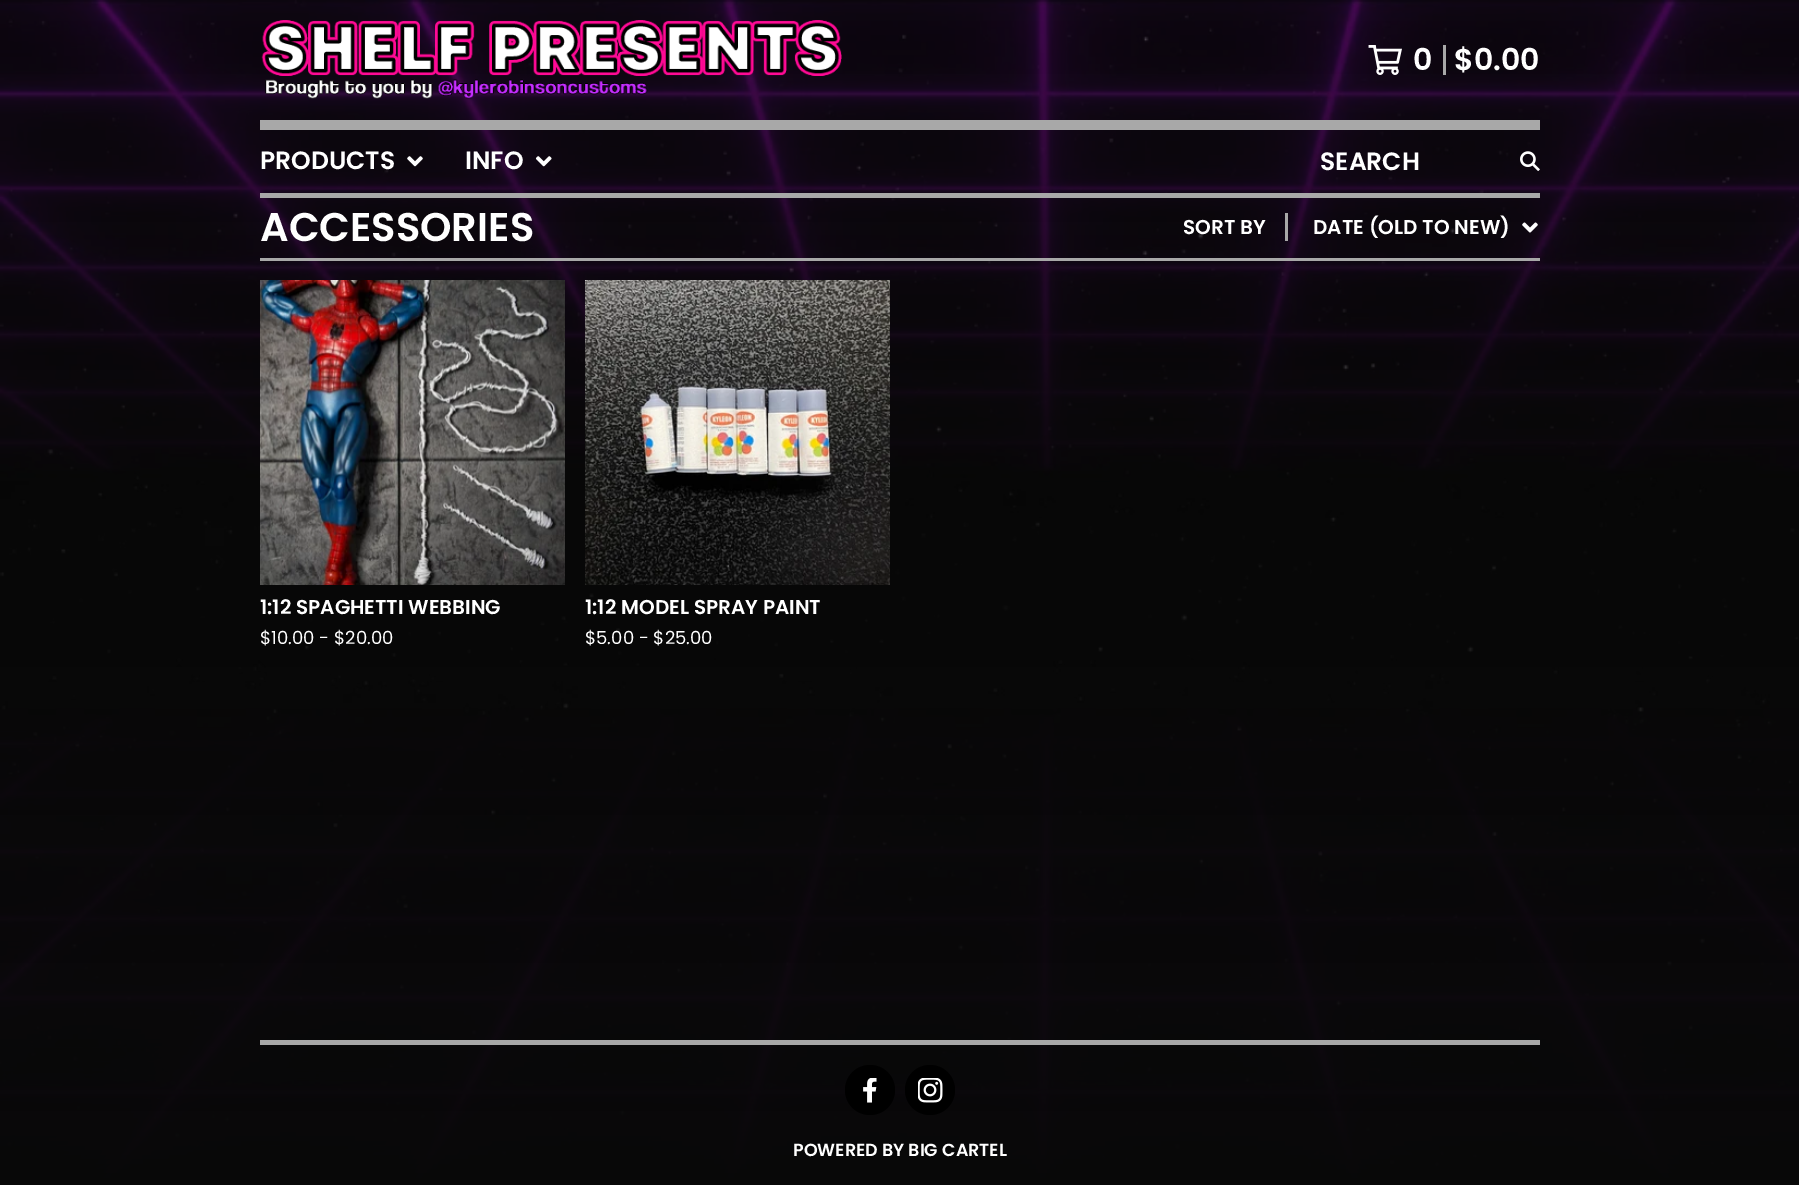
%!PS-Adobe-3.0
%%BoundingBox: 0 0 1799 1185
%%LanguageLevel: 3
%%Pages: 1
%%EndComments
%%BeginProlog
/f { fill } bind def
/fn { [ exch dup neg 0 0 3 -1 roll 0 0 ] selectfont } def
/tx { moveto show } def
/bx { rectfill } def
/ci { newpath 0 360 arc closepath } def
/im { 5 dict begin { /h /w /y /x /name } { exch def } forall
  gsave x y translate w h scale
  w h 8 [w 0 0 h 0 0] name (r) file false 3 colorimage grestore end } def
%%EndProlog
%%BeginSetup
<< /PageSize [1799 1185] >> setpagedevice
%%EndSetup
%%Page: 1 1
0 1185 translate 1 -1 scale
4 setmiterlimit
1 setgray
0 0 1799 1185 bx
(image0.raw) 0 0 1799 1185 im
0.659 setgray
260 120 1280 10 bx
(image1.raw) 261 20 581 79 im
(image2.raw) 1368 45 34 30 im
1443 45 3 30 bx
/Poppins-SemiBold 30 fn
1 setgray
(0) 1413 70 tx
($0.00) 1454 70 tx
0.659 setgray
260 193 1280 5 bx
/Poppins-SemiBold 25 fn
1 setgray
(PRODUCTS) 260 169 tx
(image3.raw) 407 156 16 11 im
(INFO) 465 169 tx
(image4.raw) 535 156 17 11 im
(SEARCH) 1320 170 tx
(image5.raw) 1520 151 20 20 im
0.659 setgray
260 258 1280 3 bx
/Poppins-SemiBold 40 fn
1 setgray
(ACCESSORIES) 260 241 tx
/Poppins-SemiBold 20 fn
(SORT BY) 1183 234 tx
0.659 setgray
1285 213 3 28 bx
1 setgray
(DATE \(OLD TO NEW\)) 1313 234 tx
(image6.raw) 1522 222 16 11 im
(image7.raw) 260 280 305 305 im
(1:12 SPAGHETTI WEBBING) 260 614 tx
/Poppins-Regular 18 fn
($10.00 - $20.00) 260 644 tx
(image8.raw) 585 280 305 305 im
/Poppins-SemiBold 20 fn
(1:12 MODEL SPRAY PAINT) 585 614 tx
/Poppins-Regular 18 fn
($5.00 - $25.00) 585 644 tx
0.659 setgray
260 1040 1280 5 bx
0 setgray
870 1090 25 ci f
(image9.raw) 863 1078 14 25 im
930 1090 25 ci f
(image10.raw) 918 1078 25 25 im
/Poppins-SemiBold 17.5 fn
1 setgray
(POWERED BY BIG CARTEL) 793 1156 tx
showpage
%%EOF
